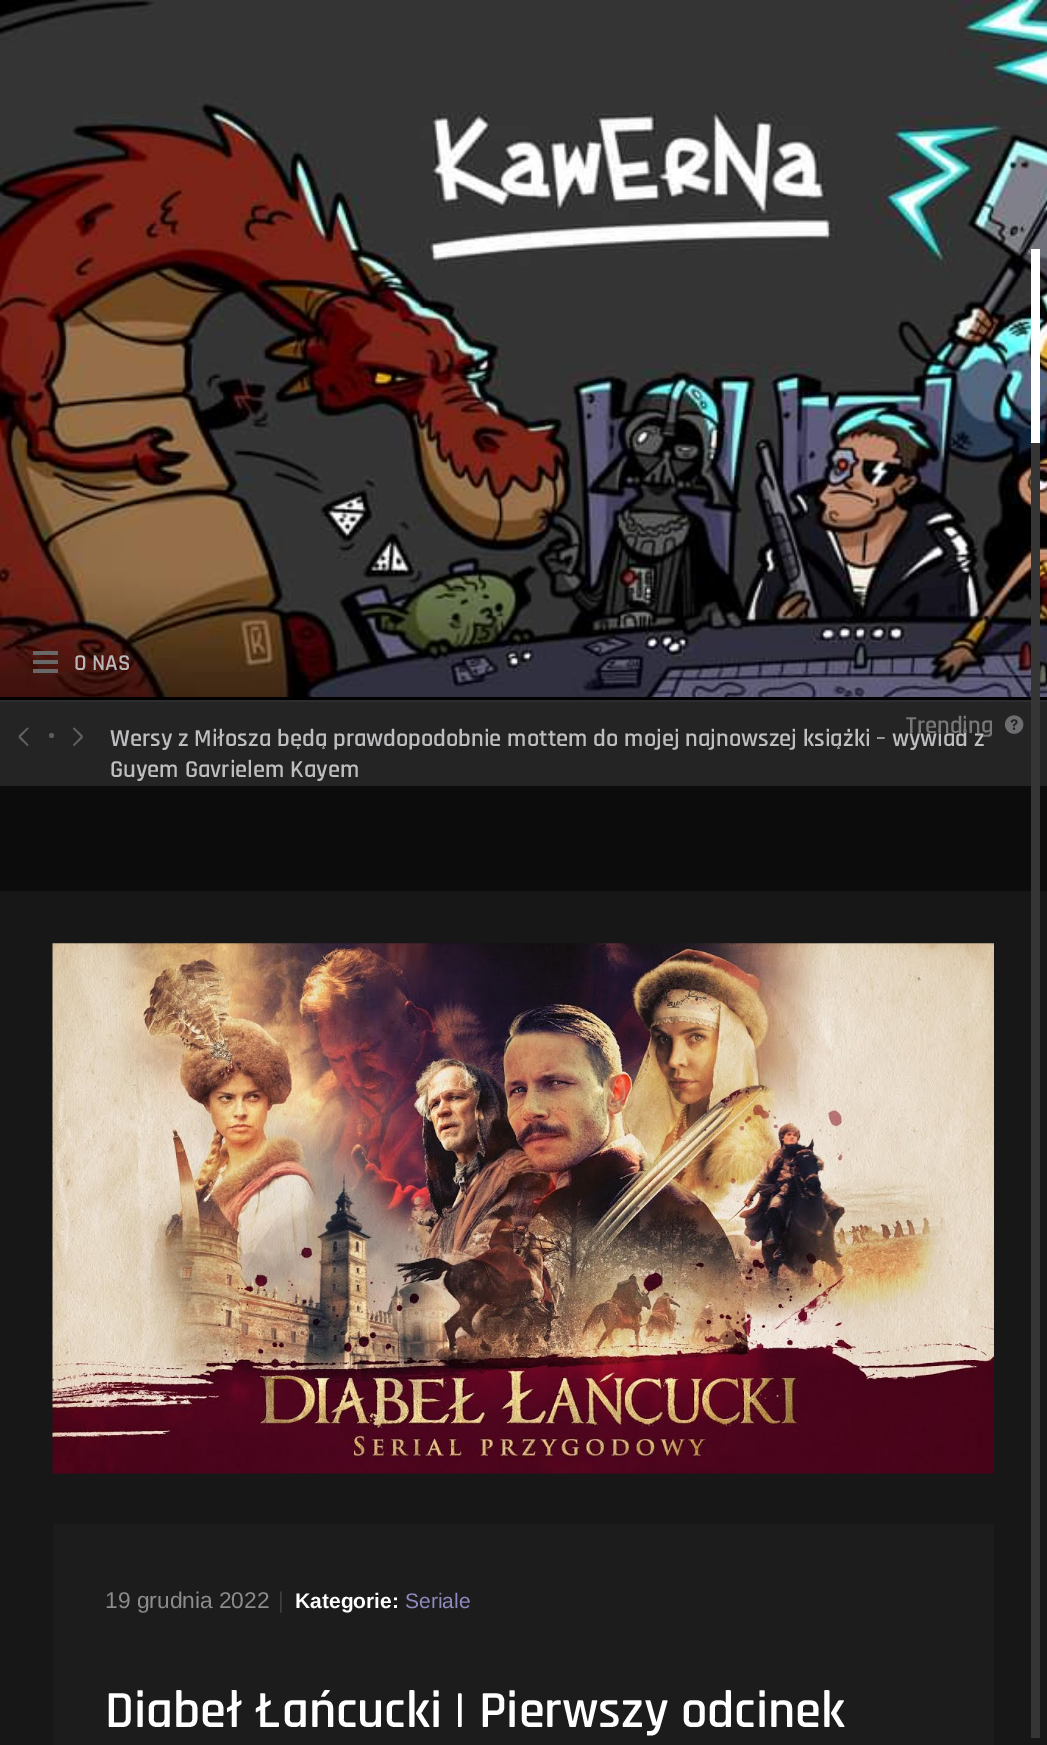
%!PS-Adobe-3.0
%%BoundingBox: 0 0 1047 1745
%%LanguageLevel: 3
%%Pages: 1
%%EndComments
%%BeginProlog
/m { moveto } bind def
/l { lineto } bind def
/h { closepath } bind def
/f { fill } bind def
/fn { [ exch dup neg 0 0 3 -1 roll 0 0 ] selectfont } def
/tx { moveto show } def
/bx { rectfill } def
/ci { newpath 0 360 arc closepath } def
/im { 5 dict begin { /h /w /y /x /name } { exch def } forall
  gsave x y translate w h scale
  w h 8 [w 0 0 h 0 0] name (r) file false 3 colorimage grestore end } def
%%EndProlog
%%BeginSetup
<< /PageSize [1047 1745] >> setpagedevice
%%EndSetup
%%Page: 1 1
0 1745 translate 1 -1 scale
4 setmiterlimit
0.047 0.047 0.051 setrgbcolor
0 0 1047 1745 bx
(image0.raw) 0 0 1047 697 im
1 setgray
1031 249 9 194 bx
0.408 0.408 0.412 setrgbcolor
33 651 25 4 bx
33 669 25 4 bx
33 660 25 4 bx
/Rajdhani-SemiBold 22.75 fn
0.722 0.722 0.725 setrgbcolor
(O NAS) 74 670 tx
0 setgray
0 697 1047 3 bx
0.165 0.173 0.18 setrgbcolor
0 700 1047 2 bx
0.141 0.141 0.145 setrgbcolor
0 702 1047 84 bx
0.376 0.376 0.384 setrgbcolor
18.5 736 m 27.5 727.5 l 28.5 728.5 l 20 737.5 l h f
20 736 m 28.5 745 l 27.5 746 l 18.5 737.5 l h f
74 727.5 m 83 736 l 81.5 737.5 l 73 728.5 l h f
73 745 m 81.5 736 l 83 737.5 l 74 746 l h f
/Rajdhani-SemiBold 24.5 fn
0.745 0.745 0.753 setrgbcolor
(Wersy z Miłosza będą prawdopodobnie mottem do mojej najnowszej książki – wywiad z) 110 746 tx
0.467 0.467 0.471 setrgbcolor
(Trending) 906 733 tx
(image1.raw) 1004 715 20 19 im
0.361 0.361 0.365 setrgbcolor
51.5 735.5 2.5 ci f
0.745 0.745 0.753 setrgbcolor
(Guyem Gavrielem Kayem) 110 777 tx
0.09 0.09 0.094 setrgbcolor
0 891 1047 854 bx
(image2.raw) 52 943 942 531 im
0.11 0.11 0.114 setrgbcolor
53 1524 941 221 bx
/LiberationSans-Regular 22.75 fn
0.549 0.549 0.553 setrgbcolor
(19 grudnia 2022) 105 1608 tx
0.243 0.243 0.247 setrgbcolor
(|) 278 1608 tx
/LiberationSans-Bold 21 fn
1 setgray
(Kategorie:) 295 1608 tx
/LiberationSans-Regular 21 fn
0.561 0.545 0.745 setrgbcolor
(Seriale) 405 1608 tx
/Rajdhani-SemiBold 52.5 fn
1 setgray
(Diabeł Łańcucki | Pierwszy odcinek) 105 1727 tx
0.208 setgray
1031 443 9 1295 bx
showpage
%%EOF
